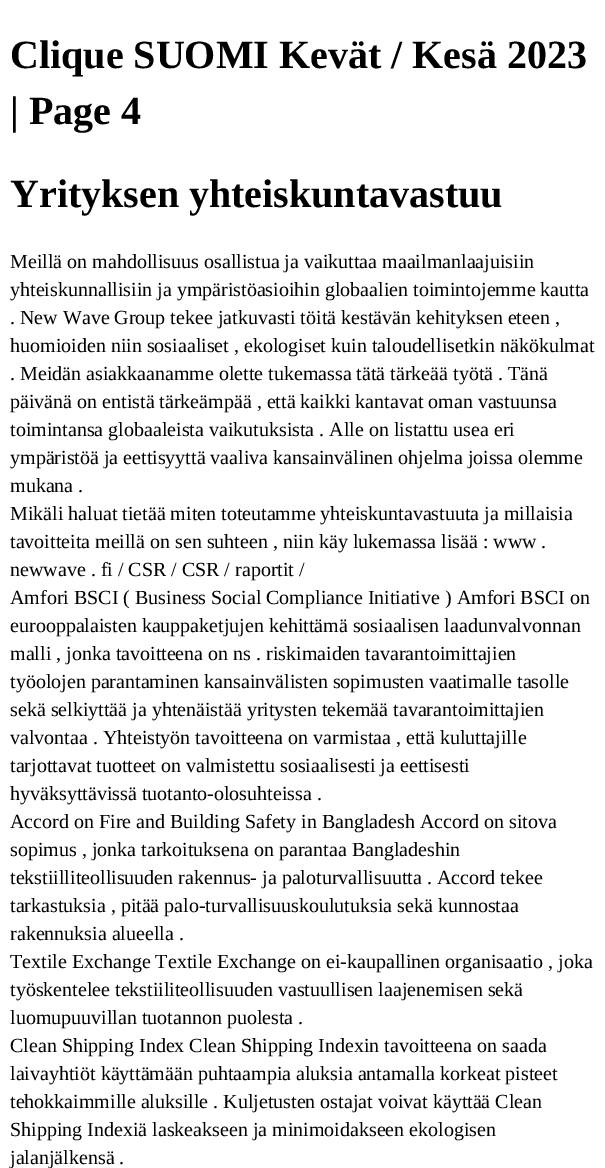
%!PS-Adobe-3.0
%%BoundingBox: 0 0 605 1168
%%LanguageLevel: 3
%%Pages: 1
%%EndComments
%%BeginProlog
/fn { [ exch dup neg 0 0 3 -1 roll 0 0 ] selectfont } def
/tx { moveto show } def
/bx { rectfill } def
%%EndProlog
%%BeginSetup
<< /PageSize [605 1168] >> setpagedevice
%%EndSetup
%%Page: 1 1
0 1168 translate 1 -1 scale
4 setmiterlimit
1 setgray
0 0 605 1168 bx
/LiberationSerif-Bold 40 fn
0 setgray
(Clique SUOMI Kevät / Kesä 2023) 10 68 tx
(| Page 4) 10 124 tx
(Yrityksen yhteiskuntavastuu) 10 207 tx
/LiberationSerif-Regular 20 fn
(Meillä on mahdollisuus osallistua ja vaikuttaa maailmanlaajuisiin) 10 268 tx
(yhteiskunnallisiin ja ympäristöasioihin globaalien toimintojemme kautta) 10 296 tx
(. New Wave Group tekee jatkuvasti töitä kestävän kehityksen eteen ,) 10 324 tx
(huomioiden niin sosiaaliset , ekologiset kuin taloudellisetkin näkökulmat) 10 352 tx
(. Meidän asiakkaanamme olette tukemassa tätä tärkeää työtä . Tänä) 10 380 tx
(päivänä on entistä tärkeämpää , että kaikki kantavat oman vastuunsa) 10 408 tx
(toimintansa globaaleista vaikutuksista . Alle on listattu usea eri) 10 436 tx
(ympäristöä ja eettisyyttä vaaliva kansainvälinen ohjelma joissa olemme) 10 464 tx
(mukana .) 10 492 tx
(Mikäli haluat tietää miten toteutamme yhteiskuntavastuuta ja millaisia) 10 520 tx
(tavoitteita meillä on sen suhteen , niin käy lukemassa lisää : www .) 10 548 tx
(newwave . fi / CSR / CSR / raportit /) 10 576 tx
(Amfori BSCI \( Business Social Compliance Initiative \) Amfori BSCI on) 10 604 tx
(eurooppalaisten kauppaketjujen kehittämä sosiaalisen laadunvalvonnan) 10 632 tx
(malli , jonka tavoitteena on ns . riskimaiden tavarantoimittajien) 10 660 tx
(työolojen parantaminen kansainvälisten sopimusten vaatimalle tasolle) 10 688 tx
(sekä selkiyttää ja yhtenäistää yritysten tekemää tavarantoimittajien) 10 716 tx
(valvontaa . Yhteistyön tavoitteena on varmistaa , että kuluttajille) 10 744 tx
(tarjottavat tuotteet on valmistettu sosiaalisesti ja eettisesti) 10 772 tx
(hyväksyttävissä tuotanto-olosuhteissa .) 10 800 tx
(Accord on Fire and Building Safety in Bangladesh Accord on sitova) 10 828 tx
(sopimus , jonka tarkoituksena on parantaa Bangladeshin) 10 856 tx
(tekstiilliteollisuuden rakennus- ja paloturvallisuutta . Accord tekee) 10 884 tx
(tarkastuksia , pitää palo-turvallisuuskoulutuksia sekä kunnostaa) 10 912 tx
(rakennuksia alueella .) 10 940 tx
(Textile Exchange Textile Exchange on ei-kaupallinen organisaatio , joka) 10 968 tx
(työskentelee tekstiiliteollisuuden vastuullisen laajenemisen sekä) 10 996 tx
(luomupuuvillan tuotannon puolesta .) 10 1024 tx
(Clean Shipping Index Clean Shipping Indexin tavoitteena on saada) 10 1052 tx
(laivayhtiöt käyttämään puhtaampia aluksia antamalla korkeat pisteet) 10 1080 tx
(tehokkaimmille aluksille . Kuljetusten ostajat voivat käyttää Clean) 10 1108 tx
(Shipping Indexiä laskeakseen ja minimoidakseen ekologisen) 10 1136 tx
(jalanjälkensä .) 10 1164 tx
showpage
%%EOF
